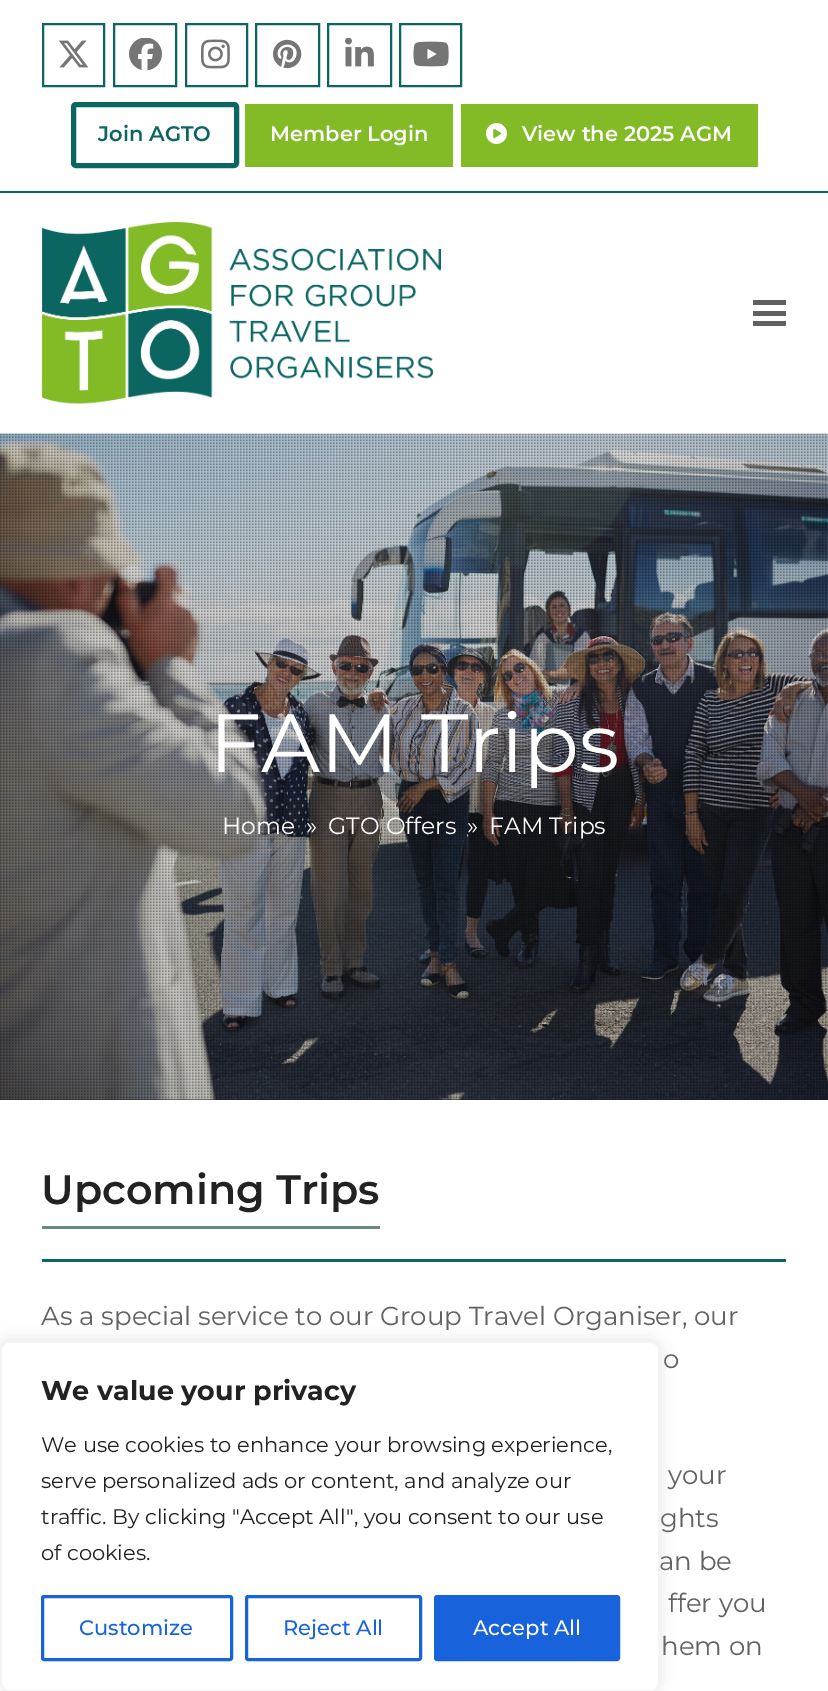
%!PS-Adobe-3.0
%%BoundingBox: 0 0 828 1691
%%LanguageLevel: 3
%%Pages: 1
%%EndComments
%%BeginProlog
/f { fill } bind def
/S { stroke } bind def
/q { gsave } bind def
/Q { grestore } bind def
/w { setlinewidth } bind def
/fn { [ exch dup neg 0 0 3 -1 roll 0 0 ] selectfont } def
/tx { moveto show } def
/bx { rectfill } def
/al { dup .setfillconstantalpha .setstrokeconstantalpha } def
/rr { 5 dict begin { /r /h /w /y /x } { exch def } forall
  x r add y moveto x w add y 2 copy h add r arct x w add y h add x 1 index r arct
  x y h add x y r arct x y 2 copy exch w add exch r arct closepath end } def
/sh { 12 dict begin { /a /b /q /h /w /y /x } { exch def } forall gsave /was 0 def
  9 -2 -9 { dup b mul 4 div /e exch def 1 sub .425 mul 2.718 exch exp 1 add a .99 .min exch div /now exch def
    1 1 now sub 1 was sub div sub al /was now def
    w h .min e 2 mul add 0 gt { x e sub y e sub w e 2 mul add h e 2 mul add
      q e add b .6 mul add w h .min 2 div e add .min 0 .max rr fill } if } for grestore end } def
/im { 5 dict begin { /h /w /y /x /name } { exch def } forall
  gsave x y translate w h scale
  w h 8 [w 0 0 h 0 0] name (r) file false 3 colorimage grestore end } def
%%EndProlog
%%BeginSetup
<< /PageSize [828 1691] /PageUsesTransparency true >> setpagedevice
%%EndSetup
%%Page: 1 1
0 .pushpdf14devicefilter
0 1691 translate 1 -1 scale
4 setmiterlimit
1 setgray
0 0 828 1691 bx
0.043 0.4 0.38 setrgbcolor
0 191 828 2 bx
2 w
43 24 61 62 rectstroke
(image0.raw) 58 40 31 28 im
114 24 62 62 rectstroke
(image1.raw) 129 38 33 33 im
186 24 61 62 rectstroke
(image2.raw) 201 39 29 30 im
256 24 63 62 rectstroke
(image3.raw) 273 39 29 30 im
328 24 63 62 rectstroke
(image4.raw) 345 38 29 29 im
400 24 61 62 rectstroke
(image5.raw) 413 41 36 26 im
5 w
73.5 104.5 163 61 2.5 rr S
/Montserrat-SemiBold 21 fn
(Join AGTO) 98 141 tx
0.51 0.733 0.145 setrgbcolor
245 104 208 63 bx
1 setgray
(Member Login) 270 141 tx
0.51 0.733 0.145 setrgbcolor
461 104 297 63 bx
(image6.raw) 486 123 21 21 im
1 setgray
(View the 2025 AGM) 522 141 tx
(image7.raw) 42 222 399 182 im
0.38 setgray
753 311 33 5 bx
753 300 33 5 bx
753 321 33 5 bx
0.114 setgray
0 1099 828 1 bx
(image8.raw) 0 433 828 667 im
(image9.raw) 0 433 828 667 im
/Montserrat-Regular 82.5 fn
1 setgray
(FAM Trips) 209 772 tx
/Montserrat-Regular 23.5 fn
(Home) 222 834 tx
(») 306 834 tx
(GTO Offers) 328 834 tx
(») 467 834 tx
(FAM Trips) 489 834 tx
0.043 0.4 0.38 setrgbcolor
42 1259 744 3 bx
0.4 0.537 0.51 setrgbcolor
42 1226 338 3 bx
/Montserrat-SemiBold 41.25 fn
0.133 setgray
(Upcoming Trips) 41 1204 tx
/Montserrat-Regular 26 fn
0.38 setgray
(As a special service to our Group Travel Organiser, our) 41 1325 tx
(o) 663 1368 tx
(your) 668 1484 tx
(ghts) 660 1527 tx
(an be) 659 1570 tx
(ffer you) 668 1612 tx
(hem on) 661 1655 tx
0.675 0.671 0.671 setrgbcolor
0 1340 660 351 9 7.5 0.3 sh
1 setgray
1 1342 658 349 8 rr q f Q
0.957 setgray
2 w
S
/Montserrat-Bold 27 fn
0.133 setgray
(We value your privacy) 41 1400 tx
/Montserrat-Regular 21 fn
(We use cookies to enhance your browsing experience,) 41 1452 tx
(serve personalized ads or content, and analyze our) 41 1488 tx
(traffic. By clicking "Accept All", you consent to our use) 41 1524 tx
(of cookies.) 41 1560 tx
0.094 0.388 0.863 setrgbcolor
3 w
42.5 1596.5 189 63 1.5 rr S
/Montserrat-Medium 21 fn
(Customize) 79 1635 tx
246.5 1596.5 174 63 1.5 rr S
(Reject All) 283 1635 tx
435.5 1596.5 183 63 1.5 rr q f Q
S
1 setgray
(Accept All) 473 1635 tx
.poppdf14devicefilter showpage
%%EOF
